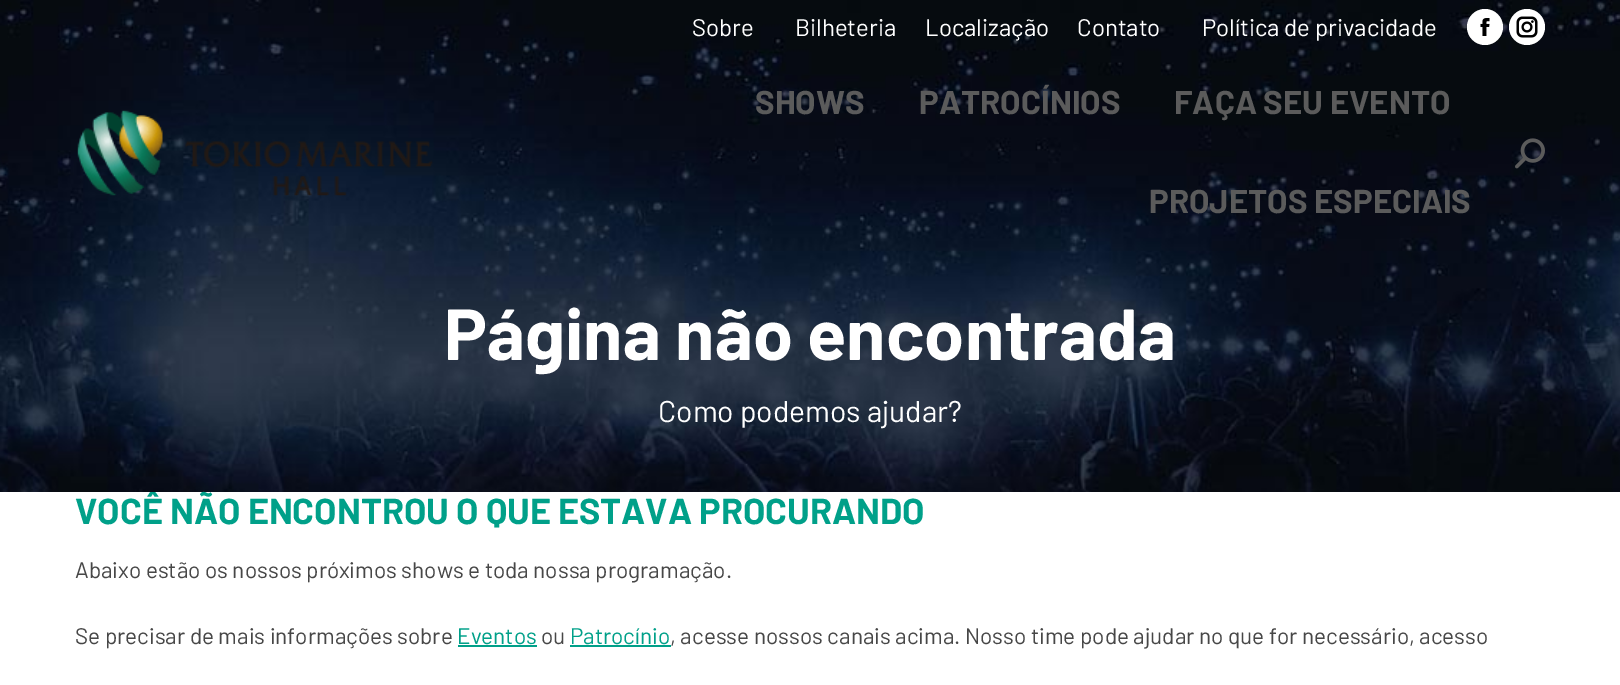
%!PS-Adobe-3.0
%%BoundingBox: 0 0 1620 685
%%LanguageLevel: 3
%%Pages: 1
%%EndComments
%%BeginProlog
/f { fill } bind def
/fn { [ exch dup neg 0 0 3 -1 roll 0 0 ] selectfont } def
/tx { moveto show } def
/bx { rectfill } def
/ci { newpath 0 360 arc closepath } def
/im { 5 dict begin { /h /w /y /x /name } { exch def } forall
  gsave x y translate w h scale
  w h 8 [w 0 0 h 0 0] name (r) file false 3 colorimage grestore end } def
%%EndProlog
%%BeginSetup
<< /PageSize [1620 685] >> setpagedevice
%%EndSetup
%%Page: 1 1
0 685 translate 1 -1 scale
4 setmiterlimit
1 setgray
0 0 1620 685 bx
(image4.raw) 0 0 1620 492 im
/Barlow-Regular 24 fn
(Sobre) 692 36 tx
(Bilheteria) 795 36 tx
(Localização) 925 36 tx
(Contato) 1077 36 tx
(Política de privacidade) 1202 36 tx
1485 27 18 ci f
(image0.raw) 1480 18 10 18 im
1527 27 18 ci f
(image1.raw) 1516 16 22 22 im
(image2.raw) 77 110 356 86 im
/Barlow-Bold 33 fn
0.357 setgray
(SHOWS) 755 114 tx
(PATROCÍNIOS) 919 114 tx
(FAÇA SEU EVENTO) 1174 114 tx
(PROJETOS ESPECIAIS) 1149 213 tx
(image3.raw) 1515 138 30 31 im
/Barlow-Bold 72 fn
1 setgray
(Página não encontrada) 444 360 tx
/Barlow-Regular 30 fn
(Como podemos ajudar?) 658 422 tx
/Barlow-Bold 36 fn
0 0.627 0.537 setrgbcolor
(VOCÊ NÃO ENCONTROU O QUE ESTAVA PROCURANDO) 75 524 tx
/Barlow-Regular 22.5 fn
0.278 setgray
(Abaixo estão os nossos próximos shows e toda nossa programação.) 75 578 tx
(Se precisar de mais informações sobre) 75 644 tx
0 0.627 0.537 setrgbcolor
(Eventos) 457 644 tx
458 645 79 2 bx
0.278 setgray
(ou) 541 644 tx
0 0.627 0.537 setrgbcolor
(Patrocínio) 570 644 tx
570 645 101 2 bx
0.278 setgray
(, acesse nossos canais acima. Nosso time pode ajudar no que for necessário, acesso) 670 644 tx
showpage
%%EOF
